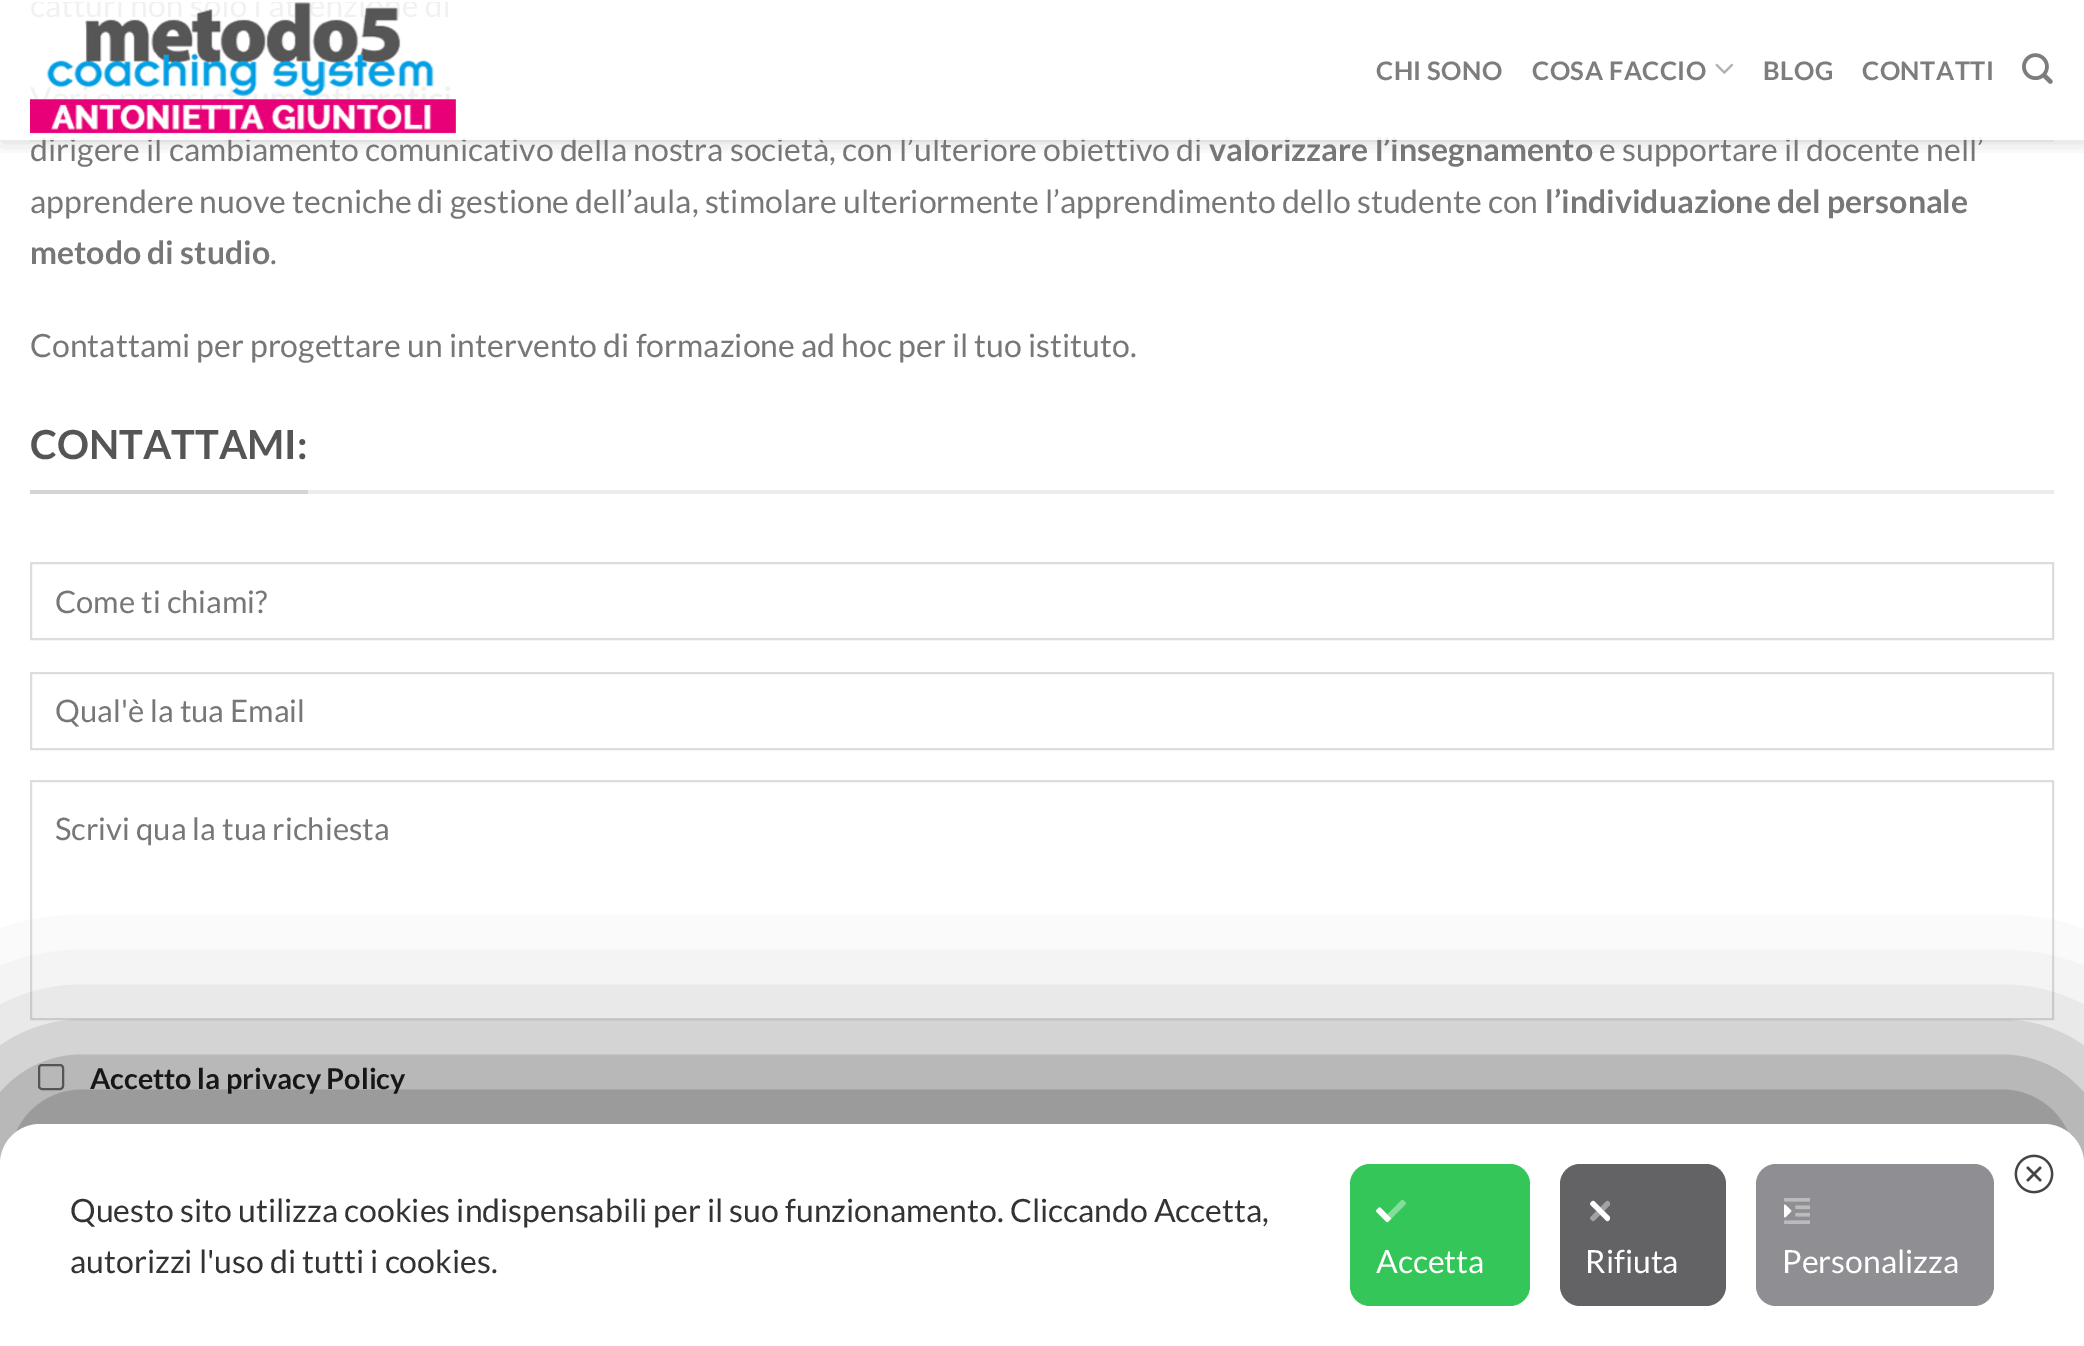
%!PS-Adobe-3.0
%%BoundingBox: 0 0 2084 1346
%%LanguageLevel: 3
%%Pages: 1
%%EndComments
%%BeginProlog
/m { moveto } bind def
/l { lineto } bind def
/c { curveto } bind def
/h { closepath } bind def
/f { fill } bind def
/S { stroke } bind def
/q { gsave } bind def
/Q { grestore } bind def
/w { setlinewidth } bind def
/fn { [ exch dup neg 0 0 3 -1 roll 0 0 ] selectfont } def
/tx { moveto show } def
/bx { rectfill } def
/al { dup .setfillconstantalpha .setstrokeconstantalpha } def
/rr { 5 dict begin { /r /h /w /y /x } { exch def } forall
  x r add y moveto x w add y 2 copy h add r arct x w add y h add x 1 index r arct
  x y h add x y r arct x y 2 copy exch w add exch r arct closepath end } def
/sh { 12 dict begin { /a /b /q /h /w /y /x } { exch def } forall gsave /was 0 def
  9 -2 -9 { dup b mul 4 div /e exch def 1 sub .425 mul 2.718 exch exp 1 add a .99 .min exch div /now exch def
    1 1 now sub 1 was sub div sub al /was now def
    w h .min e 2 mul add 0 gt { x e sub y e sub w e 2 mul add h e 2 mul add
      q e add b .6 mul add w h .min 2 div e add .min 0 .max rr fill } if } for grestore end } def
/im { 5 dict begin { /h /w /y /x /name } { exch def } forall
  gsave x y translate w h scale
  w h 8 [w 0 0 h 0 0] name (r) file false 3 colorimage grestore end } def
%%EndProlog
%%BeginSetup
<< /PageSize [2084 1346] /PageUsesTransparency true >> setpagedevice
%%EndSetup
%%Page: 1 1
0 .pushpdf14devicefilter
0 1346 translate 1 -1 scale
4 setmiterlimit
1 setgray
0 0 2084 1346 bx
q
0 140 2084 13 rectclip
0 setgray
2 2 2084 140 0 10 0.15 sh
Q
(image0.raw) 30 2 426 132 im
/Lato-Bold 25.5 fn
0.49 setgray
1376 80 m 0.5 0 (CHI SONO) ashow
1532 80 m 0.5 0 (COSA FACCIO) ashow
(image1.raw) 1715 63 19 11 im
1763 80 m 0.5 0 (BLOG) ashow
1862 80 m 0.5 0 (CONTATTI) ashow
(image2.raw) 2022 53 31 31 im
0.1 al
0.467 setgray
30 140 2024 2 bx
/Lato-Regular 32 fn
1 al
(dirigere il cambiamento comunicativo della nostra società, con l’ulteriore obiettivo di) 30 161 tx
/Lato-Bold 32 fn
(valorizzare l’insegnamento) 1209 161 tx
/Lato-Regular 32 fn
(e supportare il docente nell’) 1599 161 tx
0.9 al
1 setgray
42 136 1941 4 bx
1 al
0.467 setgray
(apprendere nuove tecniche di gestione dell’aula, stimolare ulteriormente l’apprendimento dello studente con) 30 213 tx
/Lato-Bold 32 fn
(l’individuazione del personale) 1545 213 tx
(metodo di studio) 30 264 tx
/Lato-Regular 32 fn
(.) 270 264 tx
(Contattami per progettare un intervento di formazione ad hoc per il tuo istituto.) 30 357 tx
0.925 setgray
308 490 1746 4 bx
0.831 setgray
30 490 278 4 bx
/Lato-Bold 40 fn
0.333 setgray
(CONTATTAMI:) 30 459 tx
0.867 setgray
2 w
31 563 2022 76 rectstroke
/Lato-Regular 31 fn
0.467 setgray
(Come ti chiami?) 55 613 tx
0.867 setgray
31 673 2022 76 rectstroke
0.467 setgray
(Qual'è la tua Email) 55 722 tx
0.867 setgray
31 781 2022 238 rectstroke
0.467 setgray
(Scrivi qua la tua richiesta) 55 840 tx
0.463 setgray
39 1065 24 24 3 rr S
/Lato-Bold 28.75 fn
0.133 setgray
(Accetto la privacy Policy) 90 1089 tx
0 setgray
-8 1072 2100 238 48 70 0.56 sh
1 setgray
40 1124 m 2044 1124 l 2066 1124 2084 1142 2084 1164 c 2084 1346 l 0 1346 l 0 1164 l 0 1142 18 1124 40 1124 c h f
(image3.raw) 2014 1154 40 40 im
/Lato-Regular 32 fn
0.2 setgray
(Questo sito utilizza cookies indispensabili per il suo funzionamento. Cliccando Accetta,) 70 1222 tx
(autorizzi l'uso di tutti i cookies.) 70 1273 tx
0.204 0.776 0.349 setrgbcolor
1350 1164 180 142 20 rr f
(image4.raw) 1376 1199 30 24 im
1 setgray
(Accetta) 1376 1273 tx
0.388 0.388 0.4 setrgbcolor
1560 1164 166 142 20 rr f
(image5.raw) 1590 1200 20 22 im
1 setgray
(Rifiuta) 1585 1273 tx
0.557 0.557 0.576 setrgbcolor
1756 1164 238 142 20 rr f
(image6.raw) 1784 1198 26 26 im
1 setgray
(Personalizza) 1782 1273 tx
.poppdf14devicefilter showpage
%%EOF
